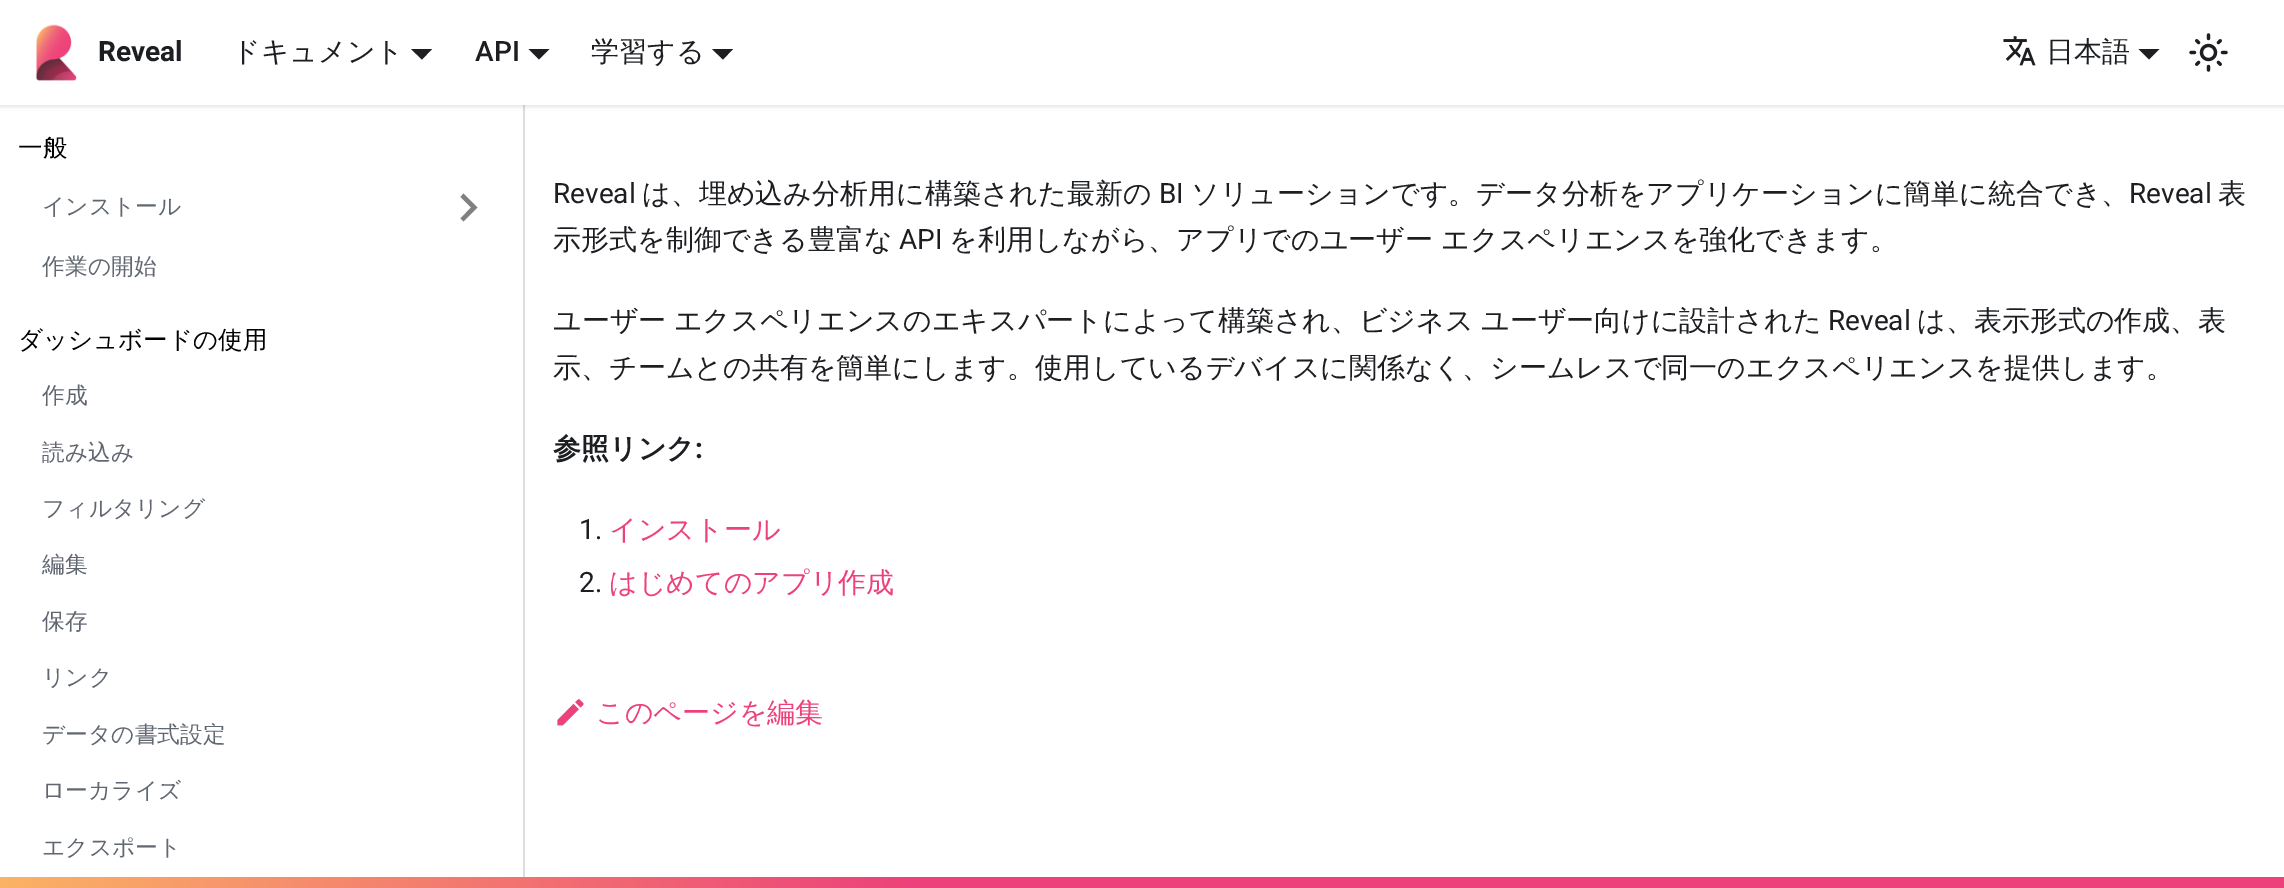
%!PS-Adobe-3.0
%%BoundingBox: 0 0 2284 888
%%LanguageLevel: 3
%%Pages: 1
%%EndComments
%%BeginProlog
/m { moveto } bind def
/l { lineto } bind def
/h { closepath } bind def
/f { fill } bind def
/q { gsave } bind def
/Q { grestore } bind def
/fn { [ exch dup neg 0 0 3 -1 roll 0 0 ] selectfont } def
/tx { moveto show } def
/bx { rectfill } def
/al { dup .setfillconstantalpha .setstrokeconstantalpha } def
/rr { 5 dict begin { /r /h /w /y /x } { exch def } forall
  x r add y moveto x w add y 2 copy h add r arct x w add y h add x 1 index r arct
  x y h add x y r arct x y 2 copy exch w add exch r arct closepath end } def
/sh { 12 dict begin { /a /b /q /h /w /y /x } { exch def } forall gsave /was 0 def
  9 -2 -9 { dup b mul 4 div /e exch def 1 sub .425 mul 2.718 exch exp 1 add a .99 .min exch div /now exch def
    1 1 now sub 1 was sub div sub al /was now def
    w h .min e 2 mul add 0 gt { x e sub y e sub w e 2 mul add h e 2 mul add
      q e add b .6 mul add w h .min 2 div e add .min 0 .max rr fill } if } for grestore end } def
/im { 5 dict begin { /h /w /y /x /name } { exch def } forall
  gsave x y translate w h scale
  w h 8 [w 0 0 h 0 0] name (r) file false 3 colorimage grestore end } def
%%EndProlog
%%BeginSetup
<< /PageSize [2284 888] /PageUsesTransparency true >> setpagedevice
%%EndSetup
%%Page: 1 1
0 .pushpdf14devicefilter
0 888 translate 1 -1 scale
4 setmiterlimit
1 setgray
0 0 2284 888 bx
0.855 0.867 0.882 setrgbcolor
523 105 2 772 bx
0 setgray
0 2 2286 105 0 2 0.1 sh
1 setgray
0 0 2284 105 bx
(image0.raw) 35 24 42 57 im
/Roboto-Bold 28 fn
0.11 0.118 0.129 setrgbcolor
(Reveal) 98 61 tx
/WenQuanYiZenHei-Medium 28 fn
(ドキュメント) 232 61 tx
411 49 m 432 49 l 422 59.5 l h f
/Roboto-Medium 28 fn
(API) 475 61 tx
528.5 49 m 549.5 49 l 539 59.5 l h f
/WenQuanYiZenHei-Medium 28 fn
(学習する) 591 61 tx
712 49 m 733 49 l 723 59.5 l h f
(image1.raw) 2003 36 33 30 im
(日本語) 2046 61 tx
2138.5 49 m 2159.5 49 l 2149 59.5 l h f
(image2.raw) 2189 33 39 39 im
/WenQuanYiZenHei-Medium 24.5 fn
0 setgray
(一般) 18 156 tx
/WenQuanYiZenHei-Medium 22.75 fn
0.376 0.404 0.439 setrgbcolor
(インストール) 42 214 tx
0.502 setgray
460.5 197 m 471 207.5 l 460.5 218.5 l 463.5 221.5 l 477.5 207.5 l 463.5 193.5 l h f
0.376 0.404 0.439 setrgbcolor
(作業の開始) 42 274 tx
/WenQuanYiZenHei-Medium 24.5 fn
0 setgray
(ダッシュボードの使用) 18 348 tx
/WenQuanYiZenHei-Medium 22.75 fn
0.376 0.404 0.439 setrgbcolor
(作成) 42 403 tx
(読み込み) 42 460 tx
(フィルタリング) 42 516 tx
(編集) 42 572 tx
(保存) 42 629 tx
(リンク) 42 685 tx
(データの書式設定) 42 742 tx
(ローカライズ) 42 798 tx
(エクスポート) 42 855 tx
/Roboto-Regular 28 fn
0.11 0.118 0.129 setrgbcolor
(Reveal) 553 203 tx
/WenQuanYiZenHei-Medium 28 fn
(は、埋め込み分析用に構築された最新の) 642 203 tx
/Roboto-Regular 28 fn
(BI) 1159 203 tx
/WenQuanYiZenHei-Medium 28 fn
(ソリューションです。データ分析をアプリケーションに簡単に統合でき、) 1191 203 tx
/Roboto-Regular 28 fn
(Reveal) 2129 203 tx
/WenQuanYiZenHei-Medium 28 fn
(表) 2218 203 tx
(示形式を制御できる豊富な) 553 249 tx
/Roboto-Regular 28 fn
(API) 899 249 tx
/WenQuanYiZenHei-Medium 28 fn
(を利用しながら、アプリでのユーザー エクスペリエンスを強化できます。) 949 249 tx
553 330 m -1 0 32 (ユーザー エクスペリエンスのエキスパートによって構築され、ビジネス ユーザー向けに設計された) widthshow
/Roboto-Regular 28 fn
(Reveal) 1828 330 tx
/WenQuanYiZenHei-Medium 28 fn
(は、表示形式の作成、表) 1917 330 tx
(示、チームとの共有を簡単にします。使用しているデバイスに関係なく、シームレスで同一のエクスペリエンスを提供します。) 553 377 tx
/WenQuanYiZenHei-Bold 28 fn
(参照リンク) 553 458 tx
/Roboto-Bold 28 fn
(:) 695 458 tx
/Roboto-Regular 28 fn
(1.) 579 539 tx
/WenQuanYiZenHei-Medium 28 fn
0.925 0.255 0.478 setrgbcolor
(インストール) 609 539 tx
/Roboto-Regular 28 fn
0.11 0.118 0.129 setrgbcolor
(2.) 579 592 tx
/WenQuanYiZenHei-Medium 28 fn
0.925 0.255 0.478 setrgbcolor
(はじめてのアプリ作成) 609 592 tx
(image3.raw) 557 699 27 27 im
(このページを編集) 596 722 tx
q 0 877 m 2284 877 l 2284 888 l 0 888 l h clip newpath
<< /ShadingType 2 /ColorSpace /DeviceRGB /Coords [0 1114 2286 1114] /Extend [true true] /Function << /FunctionType 3 /Domain [0 1] /Functions [<< /FunctionType 2 /Domain [0 1] /C0 [0.984 0.702 0.396] /C1 [0.925 0.255 0.478] /N 1 >> << /FunctionType 2 /Domain [0 1] /C0 [0.925 0.255 0.478] /C1 [0.925 0.255 0.478] /N 1 >>] /Bounds [0.4] /Encode [0 1 0 1] >> >> shfill Q
.poppdf14devicefilter showpage
%%EOF
